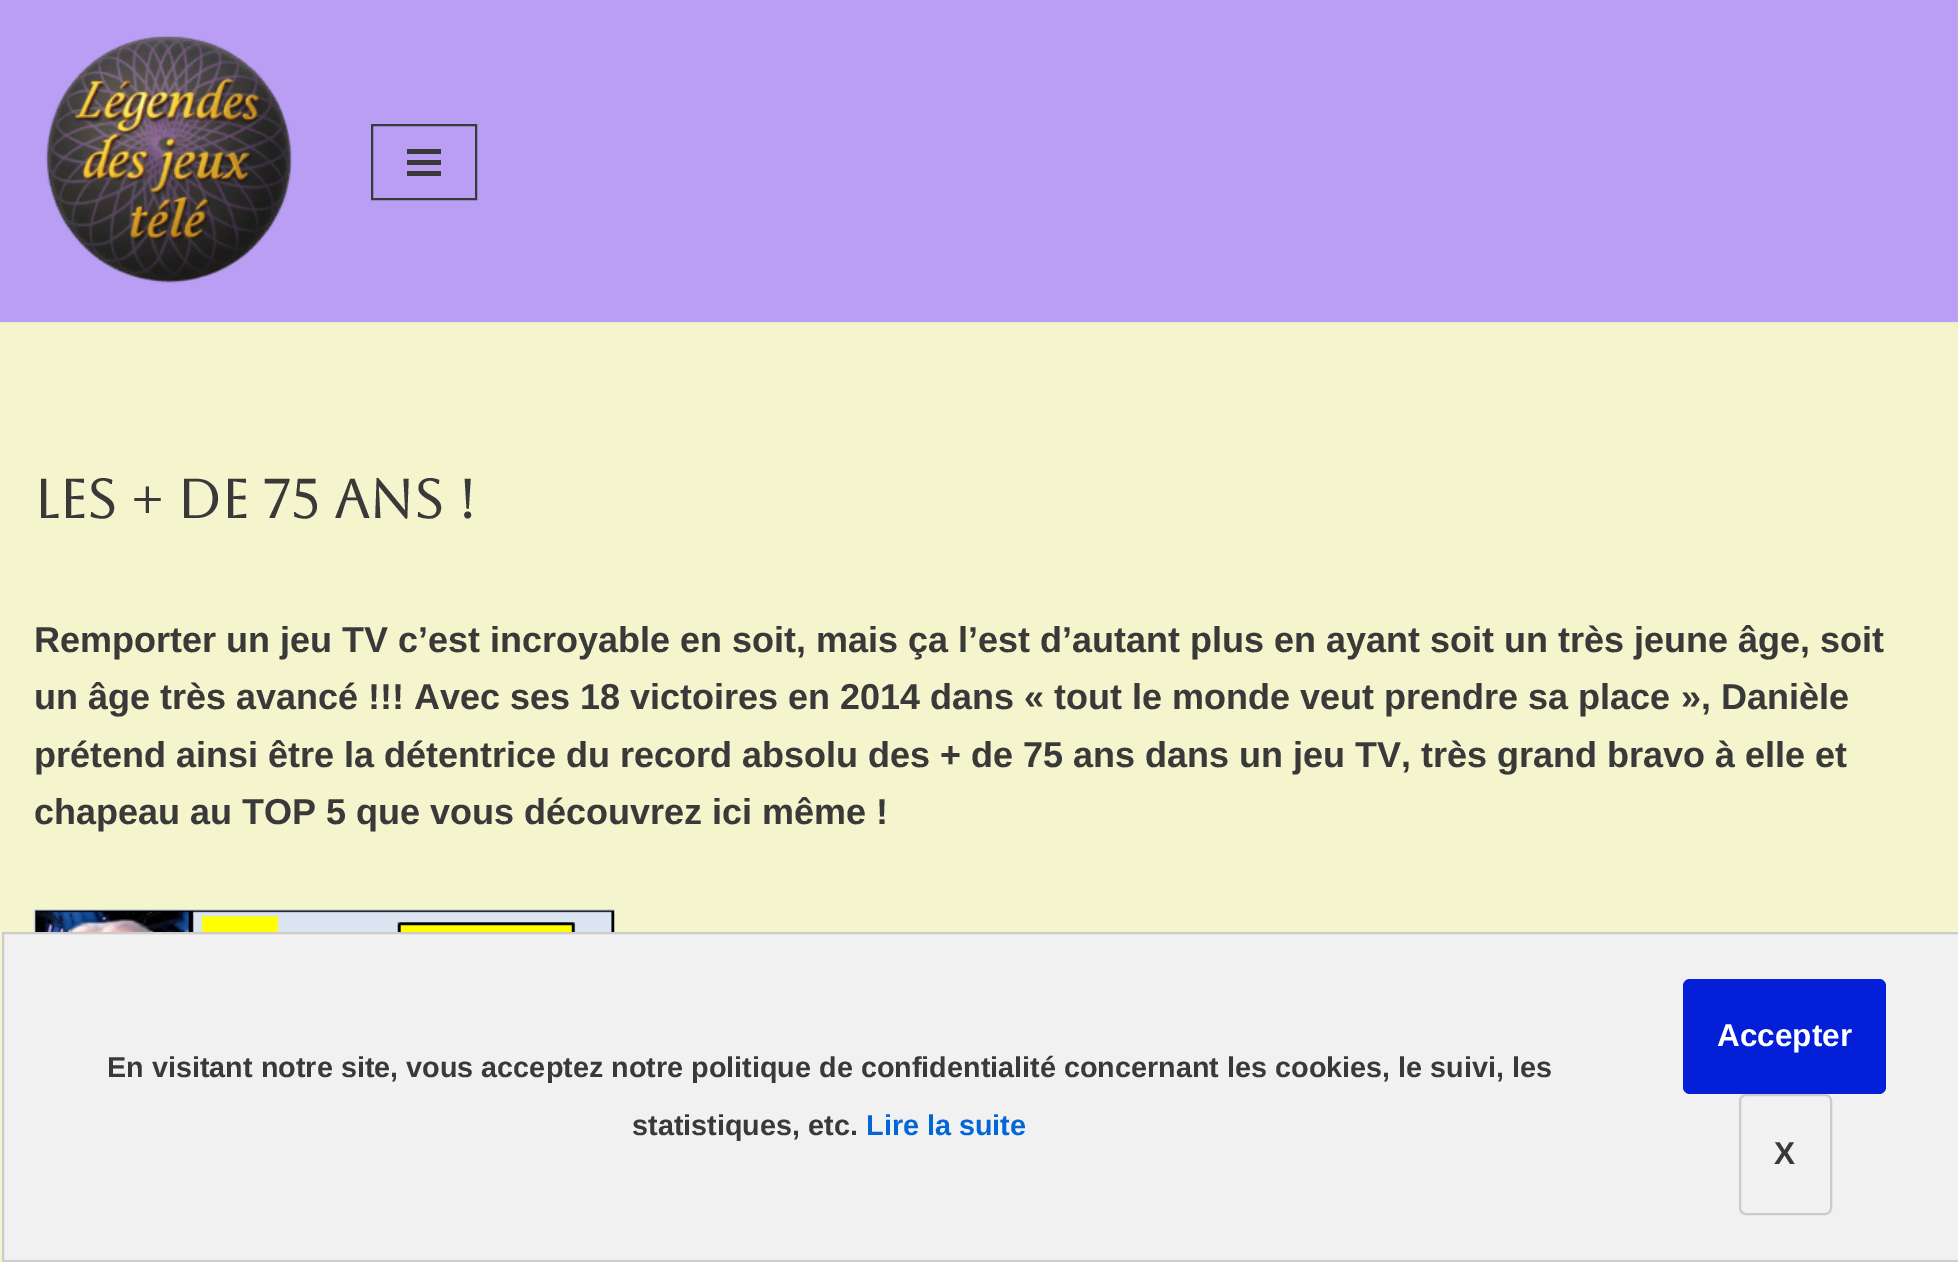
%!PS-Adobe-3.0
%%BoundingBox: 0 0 1958 1262
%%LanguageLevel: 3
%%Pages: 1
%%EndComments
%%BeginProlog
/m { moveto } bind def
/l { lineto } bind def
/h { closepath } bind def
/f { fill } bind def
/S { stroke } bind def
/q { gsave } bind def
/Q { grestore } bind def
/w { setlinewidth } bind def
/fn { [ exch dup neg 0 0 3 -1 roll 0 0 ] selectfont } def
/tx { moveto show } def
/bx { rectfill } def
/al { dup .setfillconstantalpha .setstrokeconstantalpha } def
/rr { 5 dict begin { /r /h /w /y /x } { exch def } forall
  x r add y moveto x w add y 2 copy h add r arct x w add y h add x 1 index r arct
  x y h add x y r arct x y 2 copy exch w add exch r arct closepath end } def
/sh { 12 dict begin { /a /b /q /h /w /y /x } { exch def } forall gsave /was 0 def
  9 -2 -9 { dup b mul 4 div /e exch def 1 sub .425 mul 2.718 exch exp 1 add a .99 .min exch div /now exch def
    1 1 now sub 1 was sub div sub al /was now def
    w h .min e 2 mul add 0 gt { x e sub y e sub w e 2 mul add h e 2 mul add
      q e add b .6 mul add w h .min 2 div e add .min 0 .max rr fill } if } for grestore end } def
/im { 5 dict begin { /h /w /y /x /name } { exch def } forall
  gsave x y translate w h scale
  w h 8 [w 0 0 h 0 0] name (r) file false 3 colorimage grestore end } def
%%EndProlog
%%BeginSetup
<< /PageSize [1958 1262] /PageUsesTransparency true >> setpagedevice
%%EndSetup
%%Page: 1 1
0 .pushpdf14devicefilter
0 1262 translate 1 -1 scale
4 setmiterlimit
0.957 0.957 0.804 setrgbcolor
0 0 1958 1262 bx
0 setgray
0 -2 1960 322 0 3.5 0.1 sh
0.725 0.62 0.953 setrgbcolor
0 0 1958 322 bx
(image0.raw) 45 36 247 248 im
0.224 setgray
2 w
372 125 104 74 rectstroke
407 149 34 5 bx
407 160 34 5 bx
407 171 34 5 bx
/Aboreto-Bold 54 fn
(Les + de 75 ans !) 34 518 tx
/LiberationSans-Bold 36 fn
(Remporter un jeu TV c’est incroyable en soit, mais ça l’est d’autant plus en ayant soit un très jeune âge, soit) 34 652 tx
(un âge très avancé !!! Avec ses 18 victoires en 2014 dans « tout le monde veut prendre sa place », Danièle) 34 709 tx
(prétend ainsi être la détentrice du record absolu des + de 75 ans dans un jeu TV, très grand bravo à elle et) 34 767 tx
(chapeau au TOP 5 que vous découvrez ici même !) 34 824 tx
(image1.raw) 33 909 582 23 im
0.945 setgray
3 933 m 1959 933 l 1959 1261 l 3 1261 l h q f Q
0.8 setgray
S
/LiberationSans-Bold 28.8 fn
0.224 setgray
(En visitant notre site, vous acceptez notre politique de confidentialité concernant les cookies, le suivi, les) 107 1077 tx
(statistiques, etc.) 632 1135 tx
0.012 0.4 0.839 setrgbcolor
(Lire la suite) 866 1135 tx
0.012 0.122 0.847 setrgbcolor
1683 979 203 115 7 rr f
/LiberationSans-Bold 31.5 fn
1 setgray
(Accepter) 1717 1046 tx
0.8 setgray
1740 1095 91 119 6 rr S
0.224 setgray
(X) 1774 1164 tx
.poppdf14devicefilter showpage
%%EOF
